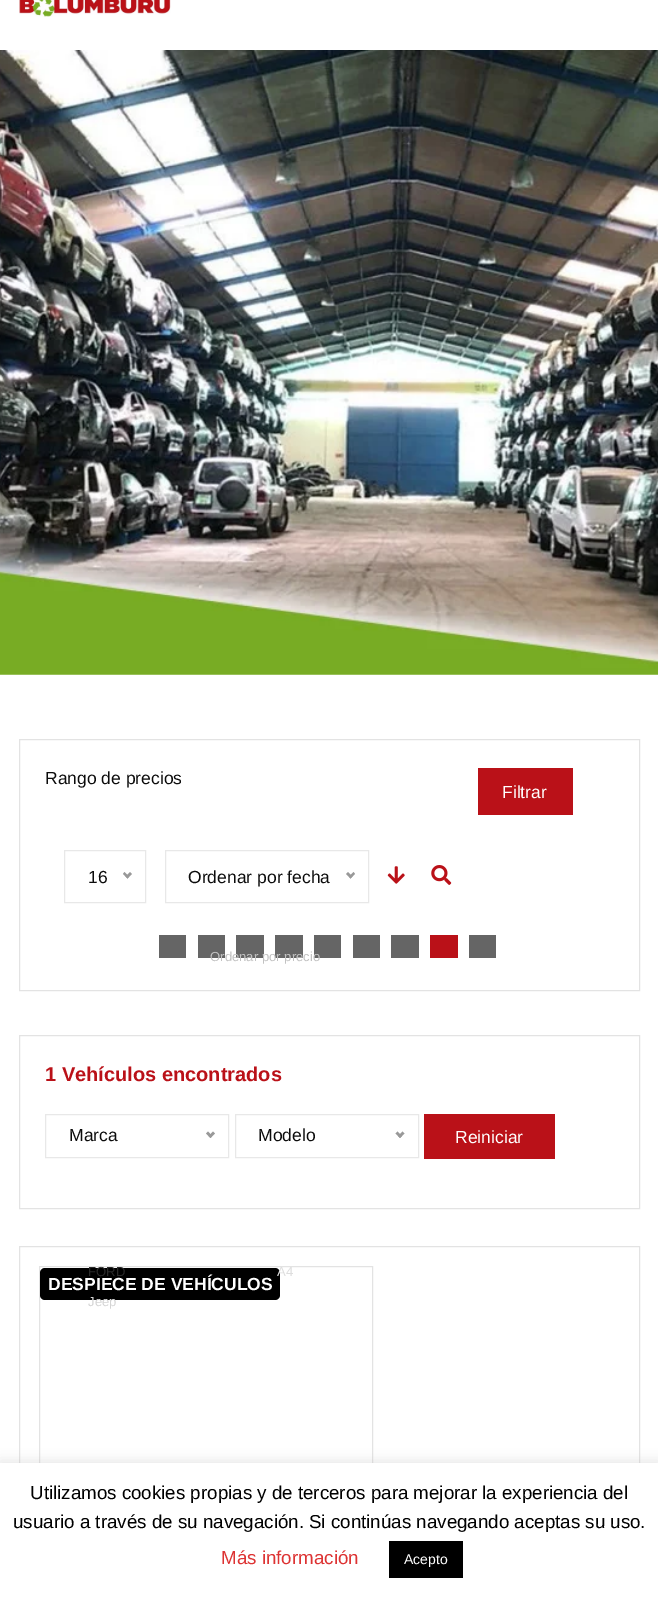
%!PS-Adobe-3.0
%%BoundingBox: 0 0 658 1598
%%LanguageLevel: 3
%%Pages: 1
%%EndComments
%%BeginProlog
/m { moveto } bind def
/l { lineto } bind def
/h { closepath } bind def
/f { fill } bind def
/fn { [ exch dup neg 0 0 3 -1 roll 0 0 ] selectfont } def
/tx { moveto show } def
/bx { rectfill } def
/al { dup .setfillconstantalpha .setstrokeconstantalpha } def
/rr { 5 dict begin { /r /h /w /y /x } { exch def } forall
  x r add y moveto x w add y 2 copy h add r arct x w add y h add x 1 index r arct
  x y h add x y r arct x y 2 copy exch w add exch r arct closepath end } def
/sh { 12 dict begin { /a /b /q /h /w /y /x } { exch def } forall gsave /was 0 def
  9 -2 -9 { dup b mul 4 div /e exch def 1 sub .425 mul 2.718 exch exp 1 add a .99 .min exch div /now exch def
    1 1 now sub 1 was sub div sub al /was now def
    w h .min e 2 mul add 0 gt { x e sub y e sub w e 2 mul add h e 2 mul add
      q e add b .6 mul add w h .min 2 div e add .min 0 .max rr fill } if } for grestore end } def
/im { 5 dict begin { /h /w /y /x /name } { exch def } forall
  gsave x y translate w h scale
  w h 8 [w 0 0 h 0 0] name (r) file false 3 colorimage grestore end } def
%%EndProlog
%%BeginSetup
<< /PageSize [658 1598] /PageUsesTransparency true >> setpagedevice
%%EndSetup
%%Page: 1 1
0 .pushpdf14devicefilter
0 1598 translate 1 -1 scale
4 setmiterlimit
1 setgray
0 0 658 1598 bx
(image0.raw) 19 0 152 17 im
(image1.raw) 0 50 658 625 im
0.89 setgray
19.5 739.5 620 251 rectstroke
/LiberationSans-Regular 17.5 fn
0.047 setgray
(Rango de precios) 45 784 tx
0.729 0.067 0.094 setrgbcolor
478 768 95 47 bx
1 setgray
(Filtrar) 502 798 tx
0.91 setgray
64.5 850.5 81 52 rectstroke
0.047 setgray
(16) 88 883 tx
0.6 setgray
130 872 m 132 874 l 127.5 878.5 l 125.5 876.5 l h f
124.5 872 m 129 876.5 l 127.5 878.5 l 123 874 l h f
0.91 setgray
165.5 850.5 203 52 rectstroke
0.047 setgray
(Ordenar por fecha) 188 883 tx
0.6 setgray
353.5 872 m 355 874 l 350.5 878.5 l 349 876.5 l h f
348 872 m 352.5 876.5 l 350.5 878.5 l 346 874 l h f
0.396 setgray
198 935 27 23 bx
236 935 28 23 bx
275 935 28 23 bx
314 935 27 23 bx
/LiberationSans-Regular 13.1 fn
0.761 setgray
(Ordenar por precio) 210 961 tx
(image2.raw) 387 866 18 18 im
(image3.raw) 431 865 21 20 im
0.396 setgray
159 935 27 23 bx
353 935 27 23 bx
391 935 28 23 bx
0.729 0.067 0.094 setrgbcolor
430 935 28 23 bx
0.396 setgray
469 935 27 23 bx
0.89 setgray
19.5 1035.5 620 173 rectstroke
/LiberationSans-Bold 20 fn
0.729 0.067 0.094 setrgbcolor
(1 Vehículos encontrados) 45 1081 tx
0.91 setgray
45.5 1114.5 183 43 rectstroke
/LiberationSans-Regular 17.5 fn
0.047 setgray
(Marca) 69 1141 tx
0.6 setgray
213 1131.5 m 215 1133.5 l 210.5 1138 l 208.5 1136 l h f
208 1131.5 m 212 1136 l 210.5 1138 l 206 1133.5 l h f
0.89 setgray
19.5 1246.5 620 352 rectstroke
39.5 1266.5 333 239 rectstroke
0 setgray
40 1268 240 32 5 rr f
/LiberationSans-Regular 13.1 fn
0.165 setgray
(FORD) 88 1276 tx
0.831 setgray
(Jeep) 88 1306 tx
0.91 setgray
235.5 1114.5 183 43 rectstroke
/LiberationSans-Regular 17.5 fn
0.047 setgray
(Modelo) 258 1141 tx
0.6 setgray
402.5 1131.5 m 404.5 1133.5 l 400 1138 l 398 1136 l h f
397.5 1131.5 m 402 1136 l 400 1138 l 395.5 1133.5 l h f
/LiberationSans-Regular 13.1 fn
0.871 setgray
(A4) 277 1276 tx
0.729 0.067 0.094 setrgbcolor
424 1114 131 45 bx
/LiberationSans-Regular 17.5 fn
1 setgray
(Reiniciar) 455 1143 tx
/LiberationSans-Bold 17.5 fn
(DESPIECE DE VEHÍCULOS) 48 1290 tx
0.675 0.671 0.671 setrgbcolor
0 1461 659 137 0 6 0.3 sh
1 setgray
0 1463 658 135 bx
/LiberationSans-Regular 18.75 fn
0 setgray
(Utilizamos cookies propias y de terceros para mejorar la experiencia del) 30 1499 tx
(usuario a través de su navegación. Si continúas navegando aceptas su uso.) 13 1528 tx
0.867 0.2 0.2 setrgbcolor
(Más información) 221 1564 tx
0 setgray
389 1541 74 37 bx
/LiberationSans-Regular 14 fn
1 setgray
(Acepto) 404 1564 tx
.poppdf14devicefilter showpage
%%EOF
